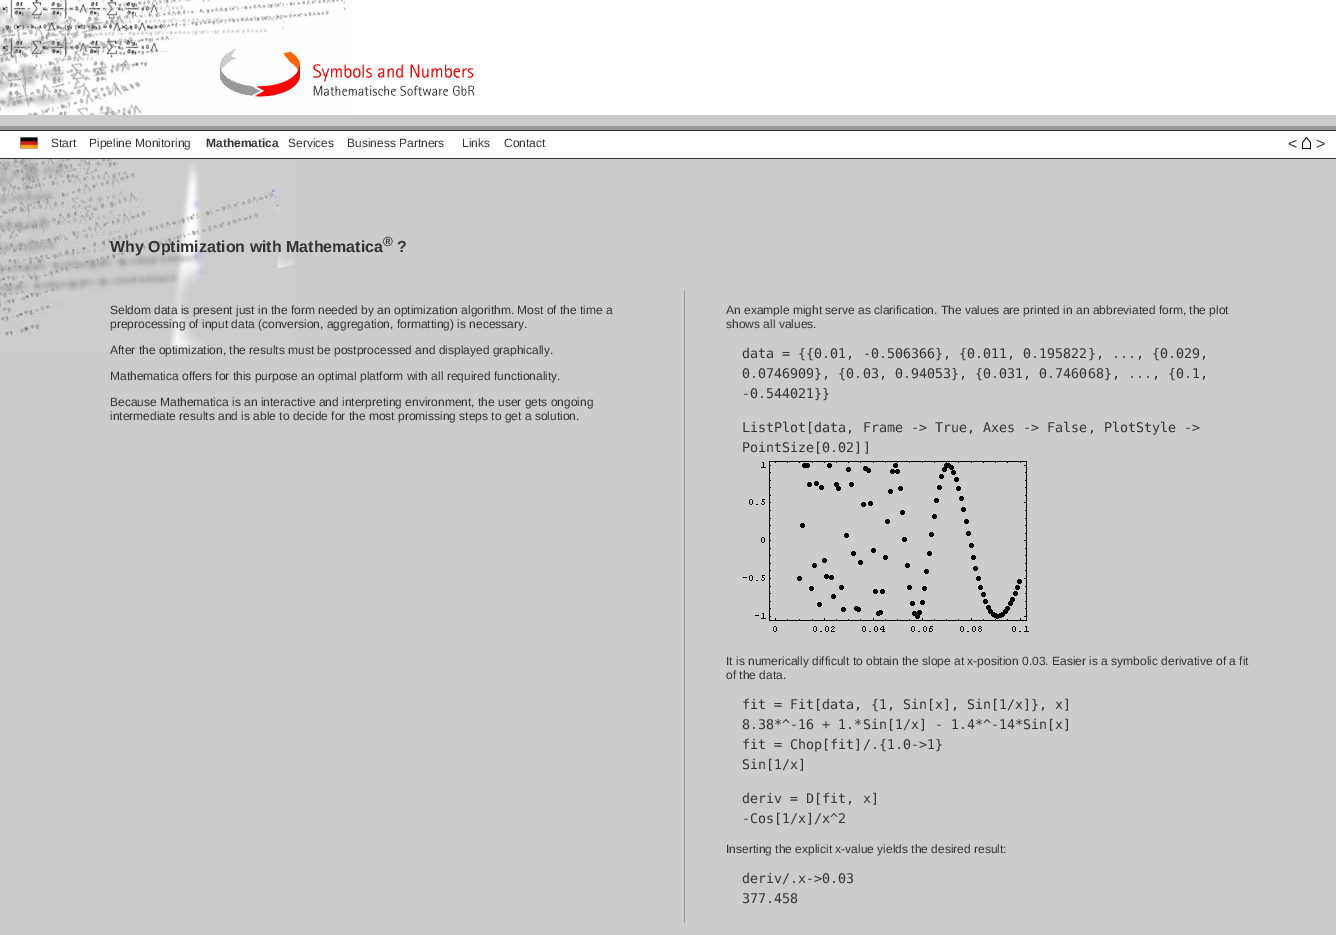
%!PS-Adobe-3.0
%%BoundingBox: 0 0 1336 935
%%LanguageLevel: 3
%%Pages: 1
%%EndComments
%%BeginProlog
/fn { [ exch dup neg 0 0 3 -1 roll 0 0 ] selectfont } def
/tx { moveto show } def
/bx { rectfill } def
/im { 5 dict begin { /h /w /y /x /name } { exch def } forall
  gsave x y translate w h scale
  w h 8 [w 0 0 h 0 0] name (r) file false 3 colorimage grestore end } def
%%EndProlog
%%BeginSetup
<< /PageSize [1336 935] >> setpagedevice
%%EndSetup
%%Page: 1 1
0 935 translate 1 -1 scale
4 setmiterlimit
0.8 setgray
0 0 1336 935 bx
1 setgray
351 0 985 115 bx
(image0.raw) 0 0 351 115 im
(image1.raw) 220 49 254 48 im
0.6 setgray
0 126 1336 4 bx
1 setgray
0 131 560 27 bx
0.2 setgray
0 130 560 1 bx
0 158 560 1 bx
1 setgray
560 131 776 27 bx
0.2 setgray
560 130 776 1 bx
560 158 776 1 bx
(image2.raw) 20 137 18 12 im
/LiberationSans-Regular 12 fn
(Start) 51 147 tx
(Pipeline Monitoring) 89 147 tx
/LiberationSans-Bold 12 fn
(Mathematica) 206 147 tx
/LiberationSans-Regular 12 fn
(Services) 288 147 tx
(Business Partners) 347 147 tx
(Links) 462 147 tx
(Contact) 504 147 tx
/LiberationSans-Regular 16 fn
(<) 1288 149 tx
(image3.raw) 1302 137 9 13 im
(>) 1316 149 tx
(image4.raw) 0 159 295 193 im
/LiberationSans-Bold 16 fn
(Why Optimization with Mathematica) 110 252 tx
/LiberationSans-Bold 13.35 fn
(®) 383 246 tx
/LiberationSans-Bold 16 fn
(?) 397 252 tx
/LiberationSans-Regular 12 fn
(Seldom data is present just in the form needed by an optimization algorithm. Most of the time a) 110 314 tx
(preprocessing of input data \(conversion, aggregation, formatting\) is necessary.) 110 328 tx
(After the optimization, the results must be postprocessed and displayed graphically.) 110 354 tx
(Mathematica offers for this purpose an optimal platform with all required functionality.) 110 380 tx
(Because Mathematica is an interactive and interpreting environment, the user gets ongoing) 110 406 tx
(intermediate results and is able to decide for the most promissing steps to get a solution.) 110 420 tx
0.6 setgray
684 291 1 632 bx
0.2 setgray
(An example might serve as clarification. The values are printed in an abbreviated form, the plot) 726 314 tx
(shows all values.) 726 328 tx
/DejaVuSansMono-Regular 13.35 fn
(data = {{0.01, -0.506366}, {0.011, 0.195822}, ..., {0.029,) 742 358 tx
(0.0746909}, {0.03, 0.94053}, {0.031, 0.746068}, ..., {0.1,) 742 378 tx
(-0.544021}}) 742 398 tx
(ListPlot[data, Frame -> True, Axes -> False, PlotStyle ->) 742 432 tx
(PointSize[0.02]]) 742 452 tx
(image5.raw) 743 461 286 171 im
/LiberationSans-Regular 12 fn
(It is numerically difficult to obtain the slope at x-position 0.03. Easier is a symbolic derivative of a fit) 726 665 tx
(of the data.) 726 679 tx
/DejaVuSansMono-Regular 13.35 fn
(fit = Fit[data, {1, Sin[x], Sin[1/x]}, x]) 742 709 tx
(8.38*^-16 + 1.*Sin[1/x] - 1.4*^-14*Sin[x]) 742 729 tx
(fit = Chop[fit]/.{1.0->1}) 742 749 tx
(Sin[1/x]) 742 769 tx
(deriv = D[fit, x]) 742 803 tx
(-Cos[1/x]/x^2) 742 823 tx
/LiberationSans-Regular 12 fn
(Inserting the explicit x-value yields the desired result:) 726 853 tx
/DejaVuSansMono-Regular 13.35 fn
(deriv/.x->0.03) 742 883 tx
(377.458) 742 903 tx
showpage
%%EOF
